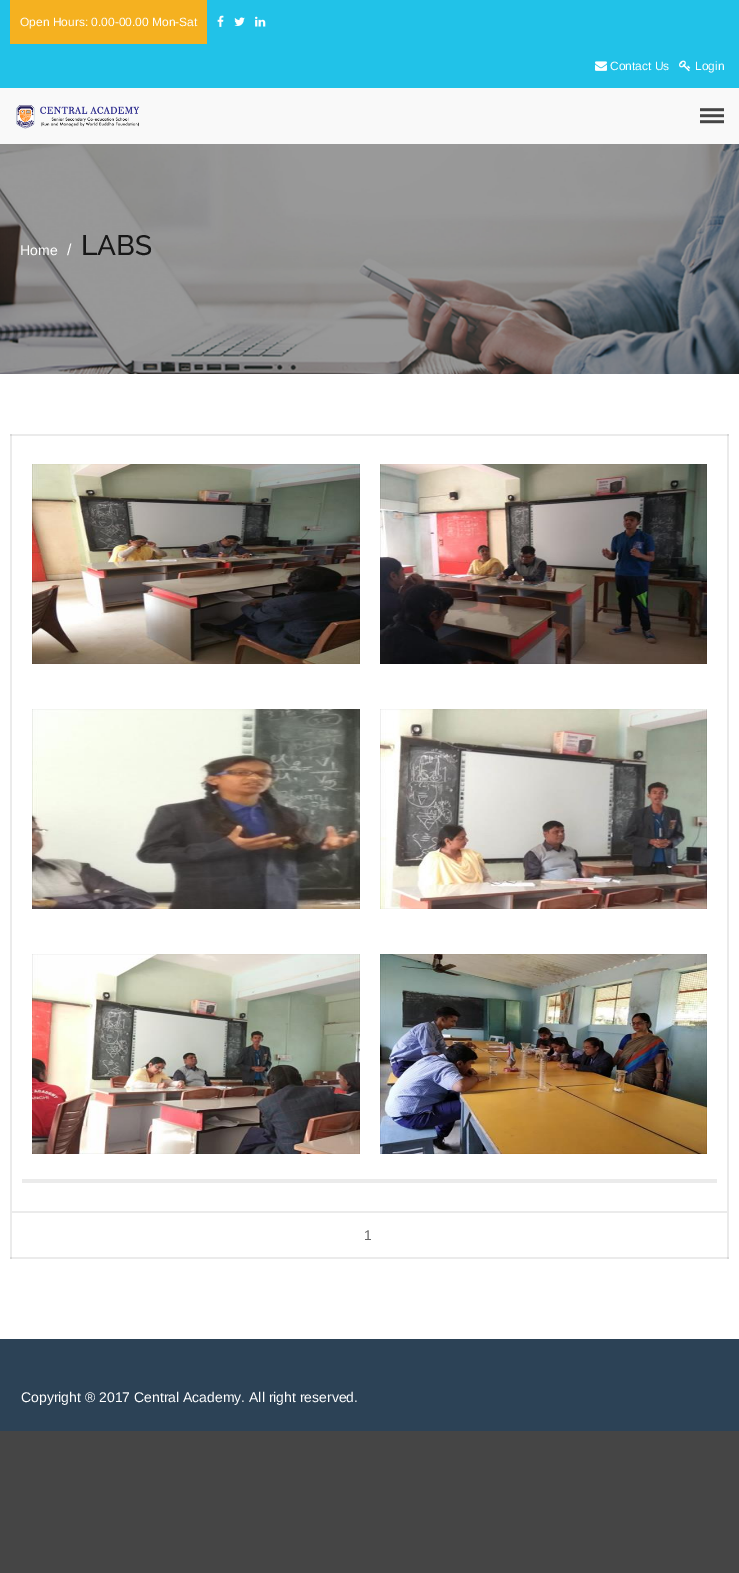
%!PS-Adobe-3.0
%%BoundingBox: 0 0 739 1573
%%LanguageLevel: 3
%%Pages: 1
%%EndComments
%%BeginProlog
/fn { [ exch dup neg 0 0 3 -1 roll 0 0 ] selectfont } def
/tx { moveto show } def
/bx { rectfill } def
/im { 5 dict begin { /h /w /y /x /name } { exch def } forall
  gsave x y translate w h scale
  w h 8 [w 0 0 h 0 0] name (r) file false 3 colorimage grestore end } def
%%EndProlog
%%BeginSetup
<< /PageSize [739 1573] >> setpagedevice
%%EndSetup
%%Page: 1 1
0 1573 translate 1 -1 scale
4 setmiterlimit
0.271 setgray
0 0 739 1573 bx
1 setgray
0 374 739 965 bx
0.922 setgray
10 434 2 825 bx
10 1257 719 2 bx
0.847 setgray
10 1257 2 2 bx
0.922 setgray
727 434 2 825 bx
0.847 setgray
727 1257 2 2 bx
0.129 0.761 0.91 setrgbcolor
0 0 739 88 bx
0.961 0.694 0.125 setrgbcolor
10 0 197 44 bx
/LiberationSans-Regular 12 fn
1 setgray
(Open Hours: 0.00-00.00 Mon-Sat) 20 26 tx
(image0.raw) 217 15 7 12 im
(image1.raw) 234 17 11 9 im
(image2.raw) 255 16 11 11 im
(image3.raw) 595 61 12 10 im
(Contact Us) 610 70 tx
(image4.raw) 679 60 12 12 im
(Login) 695 70 tx
0.976 setgray
0 88 739 56 bx
(image5.raw) 16 105 124 24 im
(image6.raw) 700 108 24 16 im
(image7.raw) 0 144 739 230 im
/LiberationSans-Regular 14 fn
1 setgray
(Home) 20 255 tx
/LiberationSans-Regular 16 fn
(/) 67 255 tx
/Raleway-Medium 28 fn
0.09 setgray
(LABS) 81 255 tx
0.922 setgray
10 434 719 2 bx
0.847 setgray
10 434 2 2 bx
727 434 2 2 bx
0.922 setgray
12 1211 715 2 bx
(image8.raw) 32 464 328 200 im
(image9.raw) 380 464 327 200 im
(image10.raw) 32 709 328 200 im
(image11.raw) 380 709 327 200 im
(image12.raw) 32 954 328 200 im
(image13.raw) 380 954 327 200 im
22 1179 695 4 bx
/LiberationSans-Regular 14 fn
0.4 setgray
(1) 364 1240 tx
0.173 0.259 0.337 setrgbcolor
0 1339 739 92 bx
1 setgray
(Copyright ® 2017 Central Academy. All right reserved.) 21 1402 tx
showpage
%%EOF
